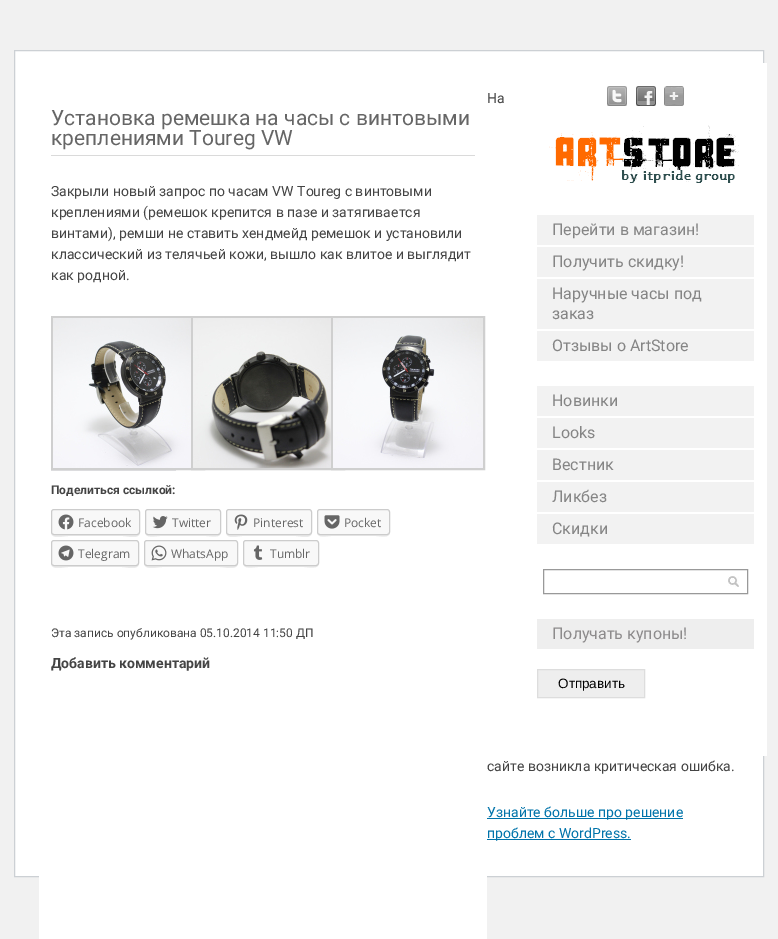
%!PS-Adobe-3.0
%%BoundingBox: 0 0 778 939
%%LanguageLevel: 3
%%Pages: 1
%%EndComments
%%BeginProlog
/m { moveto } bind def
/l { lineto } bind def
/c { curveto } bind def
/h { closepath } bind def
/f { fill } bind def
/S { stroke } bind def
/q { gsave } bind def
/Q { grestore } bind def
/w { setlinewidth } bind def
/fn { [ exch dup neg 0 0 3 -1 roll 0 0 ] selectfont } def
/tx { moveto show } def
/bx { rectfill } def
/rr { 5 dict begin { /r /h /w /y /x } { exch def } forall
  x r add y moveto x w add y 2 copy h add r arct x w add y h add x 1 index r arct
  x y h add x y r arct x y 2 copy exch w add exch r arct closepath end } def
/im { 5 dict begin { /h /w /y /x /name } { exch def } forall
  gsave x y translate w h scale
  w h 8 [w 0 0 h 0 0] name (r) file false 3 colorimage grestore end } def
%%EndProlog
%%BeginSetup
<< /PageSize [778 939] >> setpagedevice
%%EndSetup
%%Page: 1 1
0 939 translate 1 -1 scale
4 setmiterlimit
0.945 setgray
0 0 778 939 bx
1 setgray
14.5 50.5 m 763.5 50.5 l 763.5 876.5 l 14.5 876.5 l h q f Q
0.8 0.816 0.831 setrgbcolor
S
/Roboto-Regular 14 fn
0.267 setgray
(На) 487 103 tx
(сайте возникла критическая ошибка.) 487 771 tx
0 0.451 0.667 setrgbcolor
487 818 196 1 bx
(Узнайте больше про решение) 487 817 tx
487 839 144 1 bx
(проблем с WordPress.) 487 838 tx
1 setgray
39 876 448 63 bx
0.855 setgray
51 155 424 1 bx
/Roboto-Regular 21 fn
0.4 setgray
(Установка ремешка на часы с винтовыми) 51 125 tx
(креплениями Toureg VW) 51 145 tx
/Roboto-Regular 14 fn
0.267 setgray
(Закрыли новый запрос по часам VW Toureg с винтовыми) 51 196 tx
(креплениями \(ремешок крепится в пазе и затягивается) 51 217 tx
(винтами\), ремши не ставить хендмейд ремешок и установили) 51 238 tx
(классический из телячьей кожи, вышло как влитое и выглядит) 51 259 tx
(как родной.) 51 280 tx
0.812 setgray
2 w
52 317 152 152 rectstroke
(image0.raw) 53 318 138 150 im
192 317 152 152 rectstroke
(image1.raw) 193 318 138 150 im
332 317 152 152 rectstroke
(image2.raw) 333 318 150 150 im
0.863 0.863 0.871 setrgbcolor
51 470 125 1 bx
/Roboto-Bold 12 fn
0.267 setgray
(Поделиться ссылкой:) 51 494 tx
0.922 setgray
51 532 m 51 540 64 536 68 536 c 123 536 l 127 536 140 540 140 532 c 140 534 139 535 137 535 c 54 535 l 52 535 51 534 51 532 c h f
0.973 setgray
51.5 509.5 88 25 2.5 rr q f Q
0.8 setgray
1 w
S
(image3.raw) 58 514 16 16 im
/OpenSans-Regular 12 fn
0.4 setgray
(Facebook) 78 527 tx
0.922 setgray
145 532 m 145 539 156 536 160 536 c 206 536 l 210 536 221 539 221 532 c 221 534 220 535 218 535 c 148 535 l 146 535 145 534 145 532 c h f
0.973 setgray
145.5 509.5 75 25 2.5 rr q f Q
0.8 setgray
S
(image4.raw) 152 516 16 13 im
0.4 setgray
(Twitter) 172 527 tx
0.922 setgray
226 532 m 226 540 239 536 242 536 c 296 536 l 299 536 312 540 312 532 c 312 534 311 535 309 535 c 229 535 l 227 535 226 534 226 532 c h f
0.973 setgray
226.5 509.5 85 25 2.5 rr q f Q
0.8 setgray
S
(image5.raw) 234 514 14 16 im
0.4 setgray
(Pinterest) 253 527 tx
0.922 setgray
317 532 m 317 539 327 536 331 536 c 376 536 l 380 536 390 539 390 532 c 390 534 389 535 387 535 c 320 535 l 318 535 317 534 317 532 c h f
0.973 setgray
317.5 509.5 72 25 2.5 rr q f Q
0.8 setgray
S
(image6.raw) 324 515 16 14 im
0.4 setgray
(Pocket) 344 527 tx
0.922 setgray
51 563 m 51 571 64 567 68 567 c 122 567 l 126 567 139 571 139 563 c 139 565 138 566 136 566 c 54 566 l 52 566 51 565 51 563 c h f
0.973 setgray
51.5 540.5 87 25 2.5 rr q f Q
0.8 setgray
S
(image7.raw) 58 545 16 16 im
0.4 setgray
(Telegram) 78 558 tx
0.922 setgray
144 563 m 144 571 158 567 162 567 c 220 567 l 224 567 238 571 238 563 c 238 565 237 566 235 566 c 147 566 l 145 566 144 565 144 563 c h f
0.973 setgray
144.5 540.5 93 25 2.5 rr q f Q
0.8 setgray
S
(image8.raw) 151 545 16 16 im
0.4 setgray
(WhatsApp) 171 558 tx
0.922 setgray
243 563 m 243 570 254 567 258 567 c 304 567 l 308 567 319 570 319 563 c 319 565 318 566 316 566 c 246 566 l 244 566 243 565 243 563 c h f
0.973 setgray
243.5 540.5 75 25 2.5 rr q f Q
0.8 setgray
S
(image9.raw) 253 545 10 15 im
0.4 setgray
(Tumblr) 270 558 tx
/Roboto-Regular 12 fn
0.267 setgray
(Эта запись опубликована 05.10.2014 11:50 ДП) 51 637 tx
/Roboto-Bold 14 fn
(Добавить комментарий) 51 668 tx
1 setgray
763 63 4 693 bx
(image10.raw) 607 86 20 20 im
(image11.raw) 636 86 20 20 im
(image12.raw) 664 86 20 20 im
(image13.raw) 549 125 190 58 im
0.949 setgray
537 215 217 30 bx
/Roboto-Regular 16 fn
0.522 setgray
(Перейти в магазин!) 552 235 tx
0.949 setgray
537 247 217 30 bx
0.522 setgray
(Получить скидку!) 552 267 tx
0.949 setgray
537 279 217 50 bx
0.522 setgray
(Наручные часы под) 552 299 tx
(заказ) 552 319 tx
0.949 setgray
537 331 217 30 bx
0.522 setgray
(Отзывы о ArtStore) 552 351 tx
0.949 setgray
537 386 217 30 bx
0.522 setgray
(Новинки) 552 406 tx
0.949 setgray
537 418 217 30 bx
0.522 setgray
(Looks) 552 438 tx
0.949 setgray
537 450 217 30 bx
0.522 setgray
(Вестник) 552 470 tx
0.949 setgray
537 482 217 30 bx
0.522 setgray
(Ликбез) 552 502 tx
0.949 setgray
537 514 217 30 bx
0.522 setgray
(Скидки) 552 534 tx
0.6 setgray
543.5 569.5 204 24 rectstroke
(image14.raw) 728 576 11 11 im
0.933 setgray
537 619 217 30 bx
0.553 0.545 0.549 setrgbcolor
(Получать купоны!) 552 639 tx
0.933 setgray
537.5 669.5 m 644.5 669.5 l 644.5 697.5 l 537.5 697.5 l h q f Q
0.867 setgray
S
/LiberationSans-Regular 13.5 fn
0 setgray
(Отправить) 558 688 tx
showpage
%%EOF
